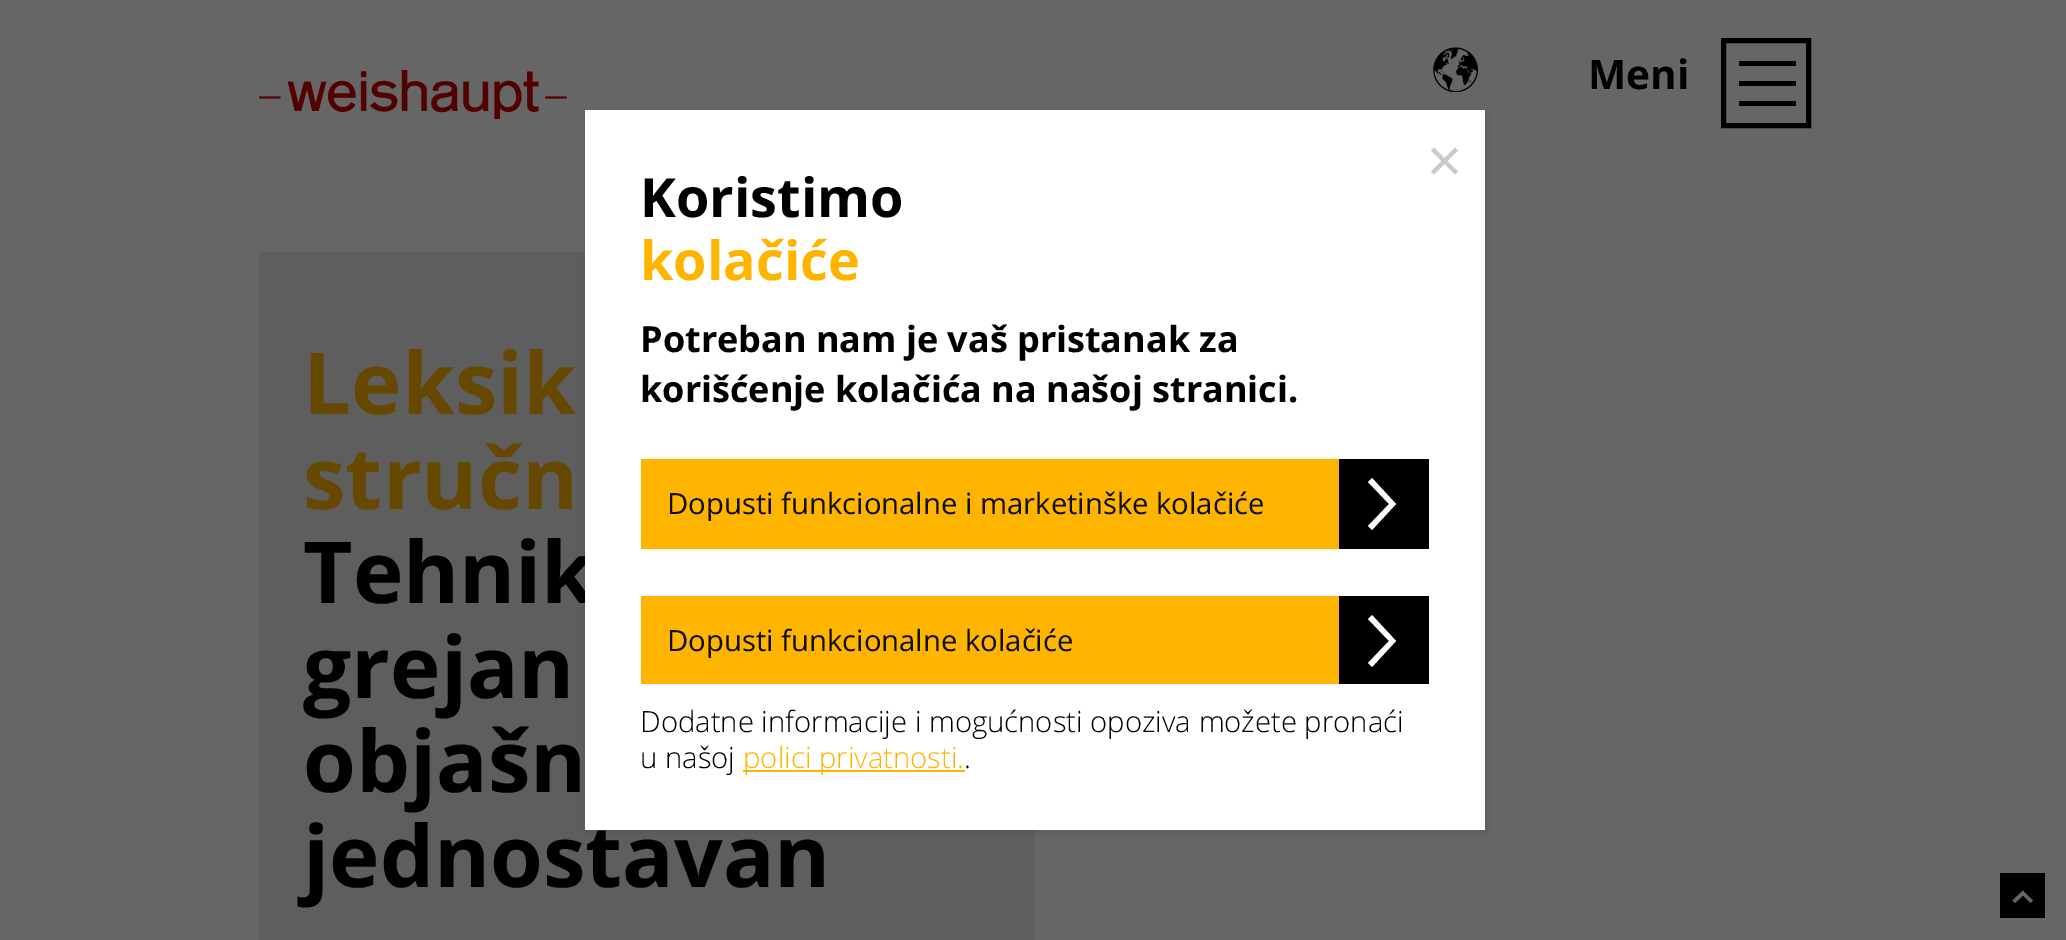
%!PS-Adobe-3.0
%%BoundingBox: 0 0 2066 940
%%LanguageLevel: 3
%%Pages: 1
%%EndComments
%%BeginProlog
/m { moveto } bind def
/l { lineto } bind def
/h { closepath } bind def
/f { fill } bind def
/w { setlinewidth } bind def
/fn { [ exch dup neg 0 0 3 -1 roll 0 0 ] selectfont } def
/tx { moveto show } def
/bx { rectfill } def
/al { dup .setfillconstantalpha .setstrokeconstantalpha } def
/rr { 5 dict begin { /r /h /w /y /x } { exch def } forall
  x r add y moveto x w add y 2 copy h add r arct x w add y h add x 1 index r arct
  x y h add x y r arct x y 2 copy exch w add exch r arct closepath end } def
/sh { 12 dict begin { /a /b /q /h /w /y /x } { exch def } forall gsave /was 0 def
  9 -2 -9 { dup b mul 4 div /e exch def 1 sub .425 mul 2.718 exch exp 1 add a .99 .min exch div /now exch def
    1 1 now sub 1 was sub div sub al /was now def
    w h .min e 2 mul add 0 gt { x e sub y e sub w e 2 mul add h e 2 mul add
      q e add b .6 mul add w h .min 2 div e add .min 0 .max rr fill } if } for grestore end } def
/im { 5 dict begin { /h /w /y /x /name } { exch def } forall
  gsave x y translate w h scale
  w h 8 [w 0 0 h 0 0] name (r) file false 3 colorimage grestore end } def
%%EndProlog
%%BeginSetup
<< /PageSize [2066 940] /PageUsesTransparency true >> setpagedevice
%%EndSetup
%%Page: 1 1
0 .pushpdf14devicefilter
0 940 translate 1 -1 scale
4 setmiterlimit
0.4 setgray
0 0 2066 940 bx
(image0.raw) 259 70 308 49 im
(image1.raw) 1433 47 45 45 im
/OpenSans-Bold 40.5 fn
0 setgray
(Meni) 1588 89 tx
5 w
1723.5 40.5 85 85 rectstroke
1739 61 57 5 bx
1739 81 57 5 bx
1739 101 57 5 bx
0.369 setgray
259 252 776 688 bx
/OpenSans-Bold 85.5 fn
0.4 0.282 0 setrgbcolor
(Leksik) 303 414 tx
(stručn) 303 509 tx
0 setgray
(Tehnik) 303 603 tx
(grejan) 303 698 tx
(objašn) 303 792 tx
(jednostavan) 303 887 tx
587 113 900 720 0 4.5 0.1 sh
1 setgray
585 110 900 720 bx
0.796 setgray
1434 147.5 m 1458 171.5 l 1455 174.5 l 1431 150.5 l h f
1431 171.5 m 1455 147.5 l 1458 150.5 l 1434 174.5 l h f
/OpenSans-Bold 54 fn
0 setgray
(Koristimo) 640 217 tx
1 0.706 0 setrgbcolor
(kolačiće) 640 280 tx
/OpenSans-Bold 36 fn
0 setgray
(Potreban nam je vaš pristanak za) 640 352 tx
(korišćenje kolačića na našoj stranici.) 640 402 tx
1 0.706 0 setrgbcolor
641 459 698 90 bx
/OpenSans-Regular 29.25 fn
0.059 setgray
(Dopusti funkcionalne i marketinške kolačiće) 667 514 tx
0 setgray
1339 459 90 90 bx
1 setgray
1372 530 m 1368 526 l 1389 504 l 1368 482 l 1372 478 l 1396 504 l h f
1 0.706 0 setrgbcolor
641 596 698 88 bx
0.059 setgray
(Dopusti funkcionalne kolačiće) 667 651 tx
0 setgray
1339 596 90 88 bx
1 setgray
1372 667 m 1368 663 l 1389 641 l 1368 619 l 1372 615 l 1396 641 l h f
/OpenSans-Light 29.25 fn
0 setgray
(Dodatne informacije i mogućnosti opoziva možete pronaći) 640 732 tx
(u našoj) 640 768 tx
1 0.706 0 setrgbcolor
743 770 222 2 bx
(polici privatnosti.) 743 768 tx
0 setgray
(.) 964 768 tx
2000 873 45 45 bx
0.4 setgray
2024 892 m 2023 890.5 l 2012.5 900.5 l 2015 903 l 2023 895.5 l 2030.5 903 l 2033 900.5 l h f
.poppdf14devicefilter showpage
%%EOF
